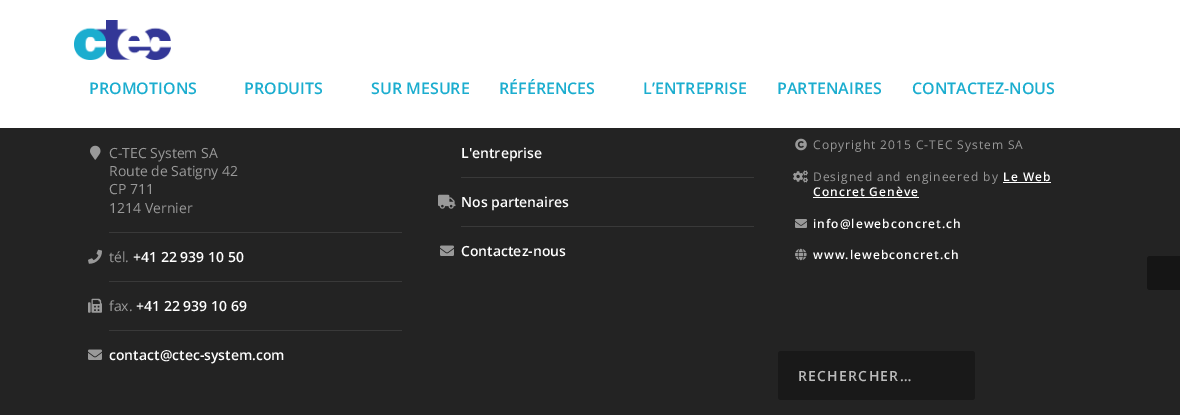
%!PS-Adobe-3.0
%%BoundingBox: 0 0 1180 415
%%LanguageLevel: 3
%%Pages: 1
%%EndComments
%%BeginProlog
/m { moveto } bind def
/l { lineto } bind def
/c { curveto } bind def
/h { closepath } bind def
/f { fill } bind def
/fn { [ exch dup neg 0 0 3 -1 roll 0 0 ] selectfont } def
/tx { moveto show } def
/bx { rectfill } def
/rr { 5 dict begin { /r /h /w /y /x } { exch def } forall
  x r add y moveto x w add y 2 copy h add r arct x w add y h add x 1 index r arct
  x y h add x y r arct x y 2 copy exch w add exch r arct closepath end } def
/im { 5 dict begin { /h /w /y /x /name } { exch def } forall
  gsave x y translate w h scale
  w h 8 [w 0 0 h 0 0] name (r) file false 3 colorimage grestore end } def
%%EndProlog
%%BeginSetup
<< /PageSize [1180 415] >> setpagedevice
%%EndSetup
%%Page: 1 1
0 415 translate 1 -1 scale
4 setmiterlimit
0.137 setgray
0 0 1180 415 bx
1 setgray
0 0 1180 128 bx
(image0.raw) 74 20 97 40 im
/OpenSans-SemiBold 16 fn
0.106 0.678 0.812 setrgbcolor
(PROMOTIONS) 89 94 tx
(PRODUITS) 244 94 tx
(SUR MESURE) 371 94 tx
(RÉFÉRENCES) 499 94 tx
(L’ENTREPRISE) 643 94 tx
(PARTENAIRES) 777 94 tx
(CONTACTEZ-NOUS) 912 94 tx
0.224 setgray
109 232 293 1 bx
(image1.raw) 90 145 11 15 im
/OpenSans-Regular 14 fn
0.6 setgray
(C-TEC System SA) 109 158 tx
(Route de Satigny 42) 109 176 tx
(CP 711) 109 194 tx
(1214 Vernier) 109 213 tx
0.224 setgray
109 281 293 1 bx
(image2.raw) 88 249 14 15 im
0.6 setgray
(tél.) 109 262 tx
/OpenSans-SemiBold 14 fn
1 setgray
(+41 22 939 10 50) 133 262 tx
0.224 setgray
109 330 293 1 bx
(image3.raw) 88 298 14 15 im
/OpenSans-Regular 14 fn
0.6 setgray
(fax.) 109 311 tx
/OpenSans-SemiBold 14 fn
1 setgray
(+41 22 939 10 69) 136 311 tx
(image4.raw) 88 349 14 11 im
(contact@ctec-system.com) 109 360 tx
0.224 setgray
461 177 293 1 bx
1 setgray
(L'entreprise) 461 158 tx
0.224 setgray
461 226 293 1 bx
(image5.raw) 438 194 18 15 im
1 setgray
(Nos partenaires) 461 207 tx
(image4.raw) 440 245 14 11 im
(Contactez-nous) 461 256 tx
(image6.raw) 795 138 12 13 im
/OpenSans-Regular 12 fn
0.6 setgray
813 149 m 1 0 (Copyright 2015 C-TEC System SA) ashow
(image7.raw) 793 170 15 13 im
813 181 m 1 0 (Designed and engineered by) ashow
/OpenSans-SemiBold 12 fn
1 setgray
1003 181 m 1 0 (Le Web) ashow
1003 182 48 1 bx
813 196 m 1 0 (Concret Genève) ashow
813 197 106 1 bx
(image8.raw) 795 219 12 9 im
813 228 m 1 0 (info@lewebconcret.ch) ashow
(image9.raw) 795 248 12 13 im
813 259 m 1 0 (www.lewebconcret.ch) ashow
0.098 setgray
778 351 197 49 3 rr f
/OpenSans-SemiBold 14 fn
0.733 setgray
798 381 m 1.25 0 (RECHERCHER…) ashow
0.082 setgray
1150 256 m 1180 256 l 1180 290 l 1150 290 l 1148.5 290 1147 288.5 1147 287 c 1147 259 l 1147 257.5 1148.5 256 1150 256 c h f
showpage
%%EOF
